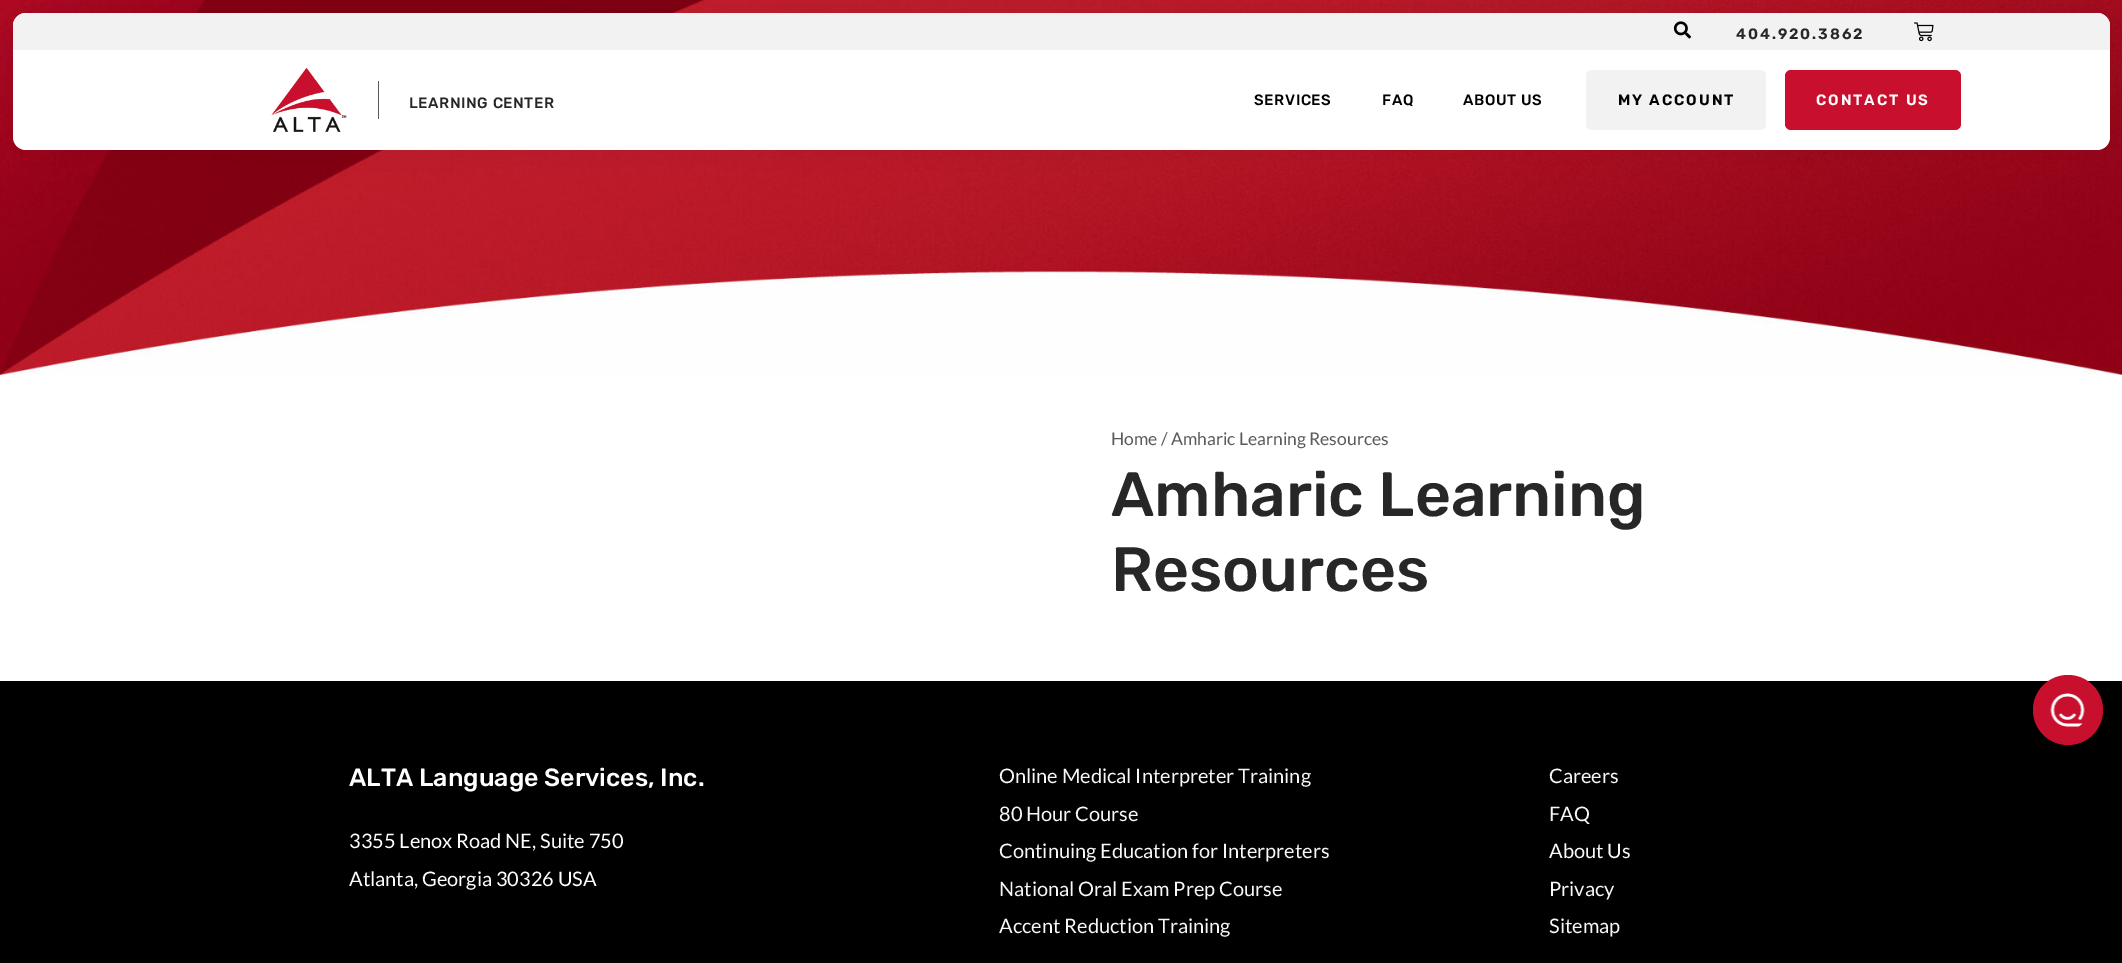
%!PS-Adobe-3.0
%%BoundingBox: 0 0 2122 963
%%LanguageLevel: 3
%%Pages: 1
%%EndComments
%%BeginProlog
/m { moveto } bind def
/l { lineto } bind def
/c { curveto } bind def
/h { closepath } bind def
/f { fill } bind def
/fn { [ exch dup neg 0 0 3 -1 roll 0 0 ] selectfont } def
/tx { moveto show } def
/bx { rectfill } def
/al { dup .setfillconstantalpha .setstrokeconstantalpha } def
/ci { newpath 0 360 arc closepath } def
/rr { 5 dict begin { /r /h /w /y /x } { exch def } forall
  x r add y moveto x w add y 2 copy h add r arct x w add y h add x 1 index r arct
  x y h add x y r arct x y 2 copy exch w add exch r arct closepath end } def
/sh { 12 dict begin { /a /b /q /h /w /y /x } { exch def } forall gsave /was 0 def
  9 -2 -9 { dup b mul 4 div /e exch def 1 sub .425 mul 2.718 exch exp 1 add a .99 .min exch div /now exch def
    1 1 now sub 1 was sub div sub al /was now def
    w h .min e 2 mul add 0 gt { x e sub y e sub w e 2 mul add h e 2 mul add
      q e add b .6 mul add w h .min 2 div e add .min 0 .max rr fill } if } for grestore end } def
/im { 5 dict begin { /h /w /y /x /name } { exch def } forall
  gsave x y translate w h scale
  w h 8 [w 0 0 h 0 0] name (r) file false 3 colorimage grestore end } def
%%EndProlog
%%BeginSetup
<< /PageSize [2122 963] /PageUsesTransparency true >> setpagedevice
%%EndSetup
%%Page: 1 1
0 .pushpdf14devicefilter
0 963 translate 1 -1 scale
4 setmiterlimit
1 setgray
0 0 2122 963 bx
(image3.raw) 0 0 2122 375 im
0.2 0.098 0.098 setrgbcolor
13 13 2097 137 13 12.5 0.1 sh
1 setgray
13 13 2097 137 13 rr f
0.949 setgray
26 13 m 2097 13 l 2104 13 2110 19 2110 26 c 2110 50 l 13 50 l 13 26 l 13 19 19 13 26 13 c h f
(image0.raw) 1673 21 18 18 im
/Rubik-SemiBold 15 fn
0.153 setgray
1736 39 m 1.9 0 (404.920.3862) ashow
(image1.raw) 1914 22 20 20 im
(image2.raw) 271 67 76 65 im
0.353 setgray
378 81 1 38 bx
/Rubik-Medium 15 fn
0.153 setgray
409 108 m 0.6 0 (LEARNING CENTER) ashow
0 setgray
1254 105 m 0.6 0 (SERVICES) ashow
1382 105 m 0.6 0 (FAQ) ashow
1463 105 m 0.6 0 (ABOUT US) ashow
0.949 setgray
1586 70 180 60 6 rr f
/Rubik-SemiBold 15 fn
0 setgray
1618 105 m 1.9 0 (MY ACCOUNT) ashow
0.784 0.063 0.18 setrgbcolor
1785 70 176 60 6 rr f
1 setgray
1816 105 m 1.9 0 (CONTACT US) ashow
/Lato-Regular 17.5 fn
0.353 setgray
(Home / Amharic Learning Resources) 1111 445 tx
/Rubik-Medium 62.5 fn
0.153 setgray
(Amharic Learning) 1111 516 tx
(Resources) 1111 591 tx
0 setgray
0 681 2122 282 bx
0.784 0.063 0.18 setrgbcolor
2068 710 35 ci f
(image4.raw) 2050 693 35 34 im
/Rubik-Medium 25 fn
1 setgray
(ALTA Language Services, Inc.) 349 786 tx
/Lato-Regular 20 fn
(3355 Lenox Road NE, Suite 750) 349 848 tx
(Atlanta, Georgia 30326 USA) 349 886 tx
0.973 setgray
(Online Medical Interpreter Training) 999 783 tx
(80 Hour Course) 999 821 tx
(Continuing Education for Interpreters) 999 858 tx
(National Oral Exam Prep Course) 999 896 tx
(Accent Reduction Training) 999 933 tx
(Careers) 1549 783 tx
(FAQ) 1549 821 tx
(About Us) 1549 858 tx
(Privacy) 1549 896 tx
(Sitemap) 1549 933 tx
.poppdf14devicefilter showpage
%%EOF
